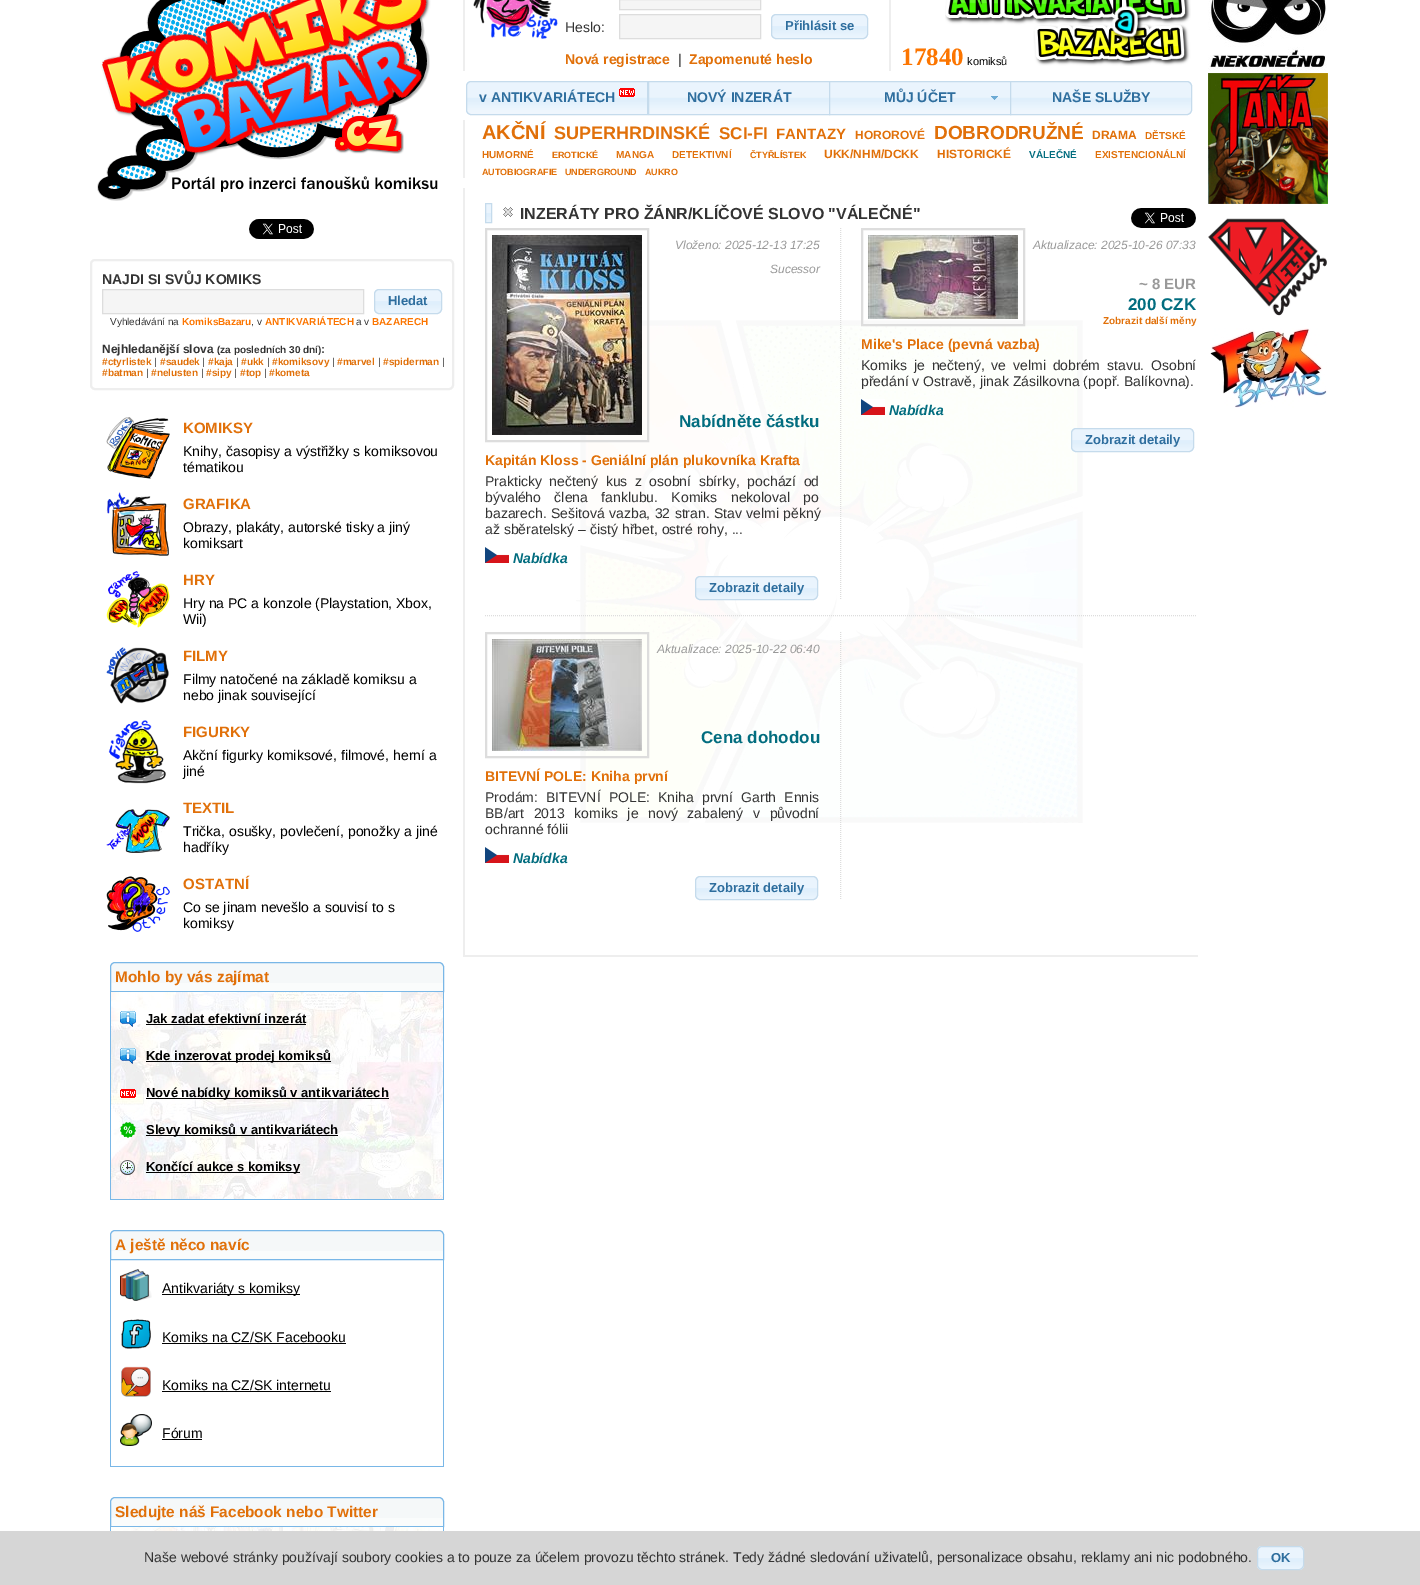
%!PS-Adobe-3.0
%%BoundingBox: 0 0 1420 1585
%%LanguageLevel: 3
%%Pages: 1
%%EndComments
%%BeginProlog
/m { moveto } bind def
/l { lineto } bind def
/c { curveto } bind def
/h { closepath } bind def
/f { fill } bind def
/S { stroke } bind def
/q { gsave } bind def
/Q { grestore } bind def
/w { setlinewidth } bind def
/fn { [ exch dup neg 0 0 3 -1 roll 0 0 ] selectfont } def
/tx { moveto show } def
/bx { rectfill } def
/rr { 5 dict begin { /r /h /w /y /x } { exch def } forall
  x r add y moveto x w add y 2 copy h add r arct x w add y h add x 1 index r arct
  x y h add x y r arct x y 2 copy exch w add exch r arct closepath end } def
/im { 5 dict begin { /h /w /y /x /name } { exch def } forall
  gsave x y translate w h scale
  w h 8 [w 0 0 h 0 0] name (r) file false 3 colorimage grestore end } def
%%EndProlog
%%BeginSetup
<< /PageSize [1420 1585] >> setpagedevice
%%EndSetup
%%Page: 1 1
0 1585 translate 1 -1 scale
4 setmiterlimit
1 setgray
0 0 1420 1585 bx
(image0.raw) 97 0 341 201 im
(image1.raw) 249 219 65 20 im
0.933 setgray
2 w
91 260 362 129 4 rr S
/LiberationSans-Bold 14 fn
0.2 setgray
(NAJDI SI SVŮJ KOMIKS) 102 284 tx
0.961 setgray
102.5 289.5 m 363.5 289.5 l 363.5 313.5 l 102.5 313.5 l h q f Q
0.867 setgray
1 w
S
(image2.raw) 374 289 68 25 im
0.773 0.859 0.925 setrgbcolor
374.5 289.5 67 24 4.5 rr S
/LiberationSans-Bold 13 fn
0.18 0.431 0.62 setrgbcolor
(Hledat) 388 305 tx
/LiberationSans-Regular 10 fn
0.2 setgray
(Vyhledávání na) 110 325 tx
/LiberationSans-Bold 10 fn
0.988 0.459 0 setrgbcolor
(KomiksBazaru) 182 325 tx
/LiberationSans-Regular 10 fn
0.2 setgray
(, v) 251 325 tx
/LiberationSans-Bold 10 fn
0.988 0.459 0 setrgbcolor
(ANTIKVARIÁTECH) 265 325 tx
/LiberationSans-Regular 10 fn
0.2 setgray
(a v) 356 325 tx
/LiberationSans-Bold 10 fn
0.988 0.459 0 setrgbcolor
(BAZARECH) 372 325 tx
/LiberationSans-Bold 12 fn
0.2 setgray
(Nejhledanější slova) 102 353 tx
/LiberationSans-Bold 10 fn
(\(za posledních 30 dní\)) 217 353 tx
/LiberationSans-Bold 12 fn
(:) 321 353 tx
/LiberationSans-Bold 10 fn
0.882 0.439 0.035 setrgbcolor
(#ctyrlistek) 102 365 tx
/LiberationSans-Regular 10 fn
0.2 setgray
(|) 154 365 tx
/LiberationSans-Bold 10 fn
0.882 0.439 0.035 setrgbcolor
(#saudek) 160 365 tx
/LiberationSans-Regular 10 fn
0.2 setgray
(|) 202 365 tx
/LiberationSans-Bold 10 fn
0.882 0.439 0.035 setrgbcolor
(#kaja) 208 365 tx
/LiberationSans-Regular 10 fn
0.2 setgray
(|) 236 365 tx
/LiberationSans-Bold 10 fn
0.882 0.439 0.035 setrgbcolor
(#ukk) 241 365 tx
/LiberationSans-Regular 10 fn
0.2 setgray
(|) 267 365 tx
/LiberationSans-Bold 10 fn
0.882 0.439 0.035 setrgbcolor
(#komiksovy) 272 365 tx
/LiberationSans-Regular 10 fn
0.2 setgray
(|) 332 365 tx
/LiberationSans-Bold 10 fn
0.882 0.439 0.035 setrgbcolor
(#marvel) 337 365 tx
/LiberationSans-Regular 10 fn
0.2 setgray
(|) 378 365 tx
/LiberationSans-Bold 10 fn
0.882 0.439 0.035 setrgbcolor
(#spiderman) 383 365 tx
/LiberationSans-Regular 10 fn
0.2 setgray
(|) 442 365 tx
/LiberationSans-Bold 10 fn
0.882 0.439 0.035 setrgbcolor
(#batman) 102 376 tx
/LiberationSans-Regular 10 fn
0.2 setgray
(|) 146 376 tx
/LiberationSans-Bold 10 fn
0.882 0.439 0.035 setrgbcolor
(#nelusten) 151 376 tx
/LiberationSans-Regular 10 fn
0.2 setgray
(|) 201 376 tx
/LiberationSans-Bold 10 fn
0.882 0.439 0.035 setrgbcolor
(#sipy) 206 376 tx
/LiberationSans-Regular 10 fn
0.2 setgray
(|) 234 376 tx
/LiberationSans-Bold 10 fn
0.882 0.439 0.035 setrgbcolor
(#top) 240 376 tx
/LiberationSans-Regular 10 fn
0.2 setgray
(|) 264 376 tx
/LiberationSans-Bold 10 fn
0.882 0.439 0.035 setrgbcolor
(#kometa) 269 376 tx
(image3.raw) 106 417 64 62 im
/LiberationSans-Bold 15 fn
(KOMIKSY) 183 433 tx
/LiberationSans-Regular 14 fn
0 setgray
(Knihy, časopisy a výstřižky s komiksovou) 183 456 tx
(tématikou) 183 472 tx
(image4.raw) 106 492 63 64 im
/LiberationSans-Bold 15 fn
0.882 0.439 0.035 setrgbcolor
(GRAFIKA) 183 509 tx
/LiberationSans-Regular 14 fn
0 setgray
(Obrazy, plakáty, autorské tisky a jiný) 183 532 tx
(komiksart) 183 548 tx
(image5.raw) 106 571 64 57 im
/LiberationSans-Bold 15 fn
0.882 0.439 0.035 setrgbcolor
(HRY) 183 585 tx
/LiberationSans-Regular 14 fn
0 setgray
(Hry na PC a konzole \(Playstation, Xbox,) 183 608 tx
(Wii\)) 183 624 tx
(image6.raw) 106 647 63 57 im
/LiberationSans-Bold 15 fn
0.882 0.439 0.035 setrgbcolor
(FILMY) 183 661 tx
/LiberationSans-Regular 14 fn
0 setgray
(Filmy natočené na základě komiksu a) 183 684 tx
(nebo jinak související) 183 700 tx
(image7.raw) 108 720 58 64 im
/LiberationSans-Bold 15 fn
0.882 0.439 0.035 setrgbcolor
(FIGURKY) 183 737 tx
/LiberationSans-Regular 14 fn
0 setgray
(Akční figurky komiksové, filmové, herní a) 183 760 tx
(jiné) 183 776 tx
/LiberationSans-Bold 15 fn
0.882 0.439 0.035 setrgbcolor
(TEXTIL) 183 813 tx
(image8.raw) 106 809 64 44 im
/LiberationSans-Regular 14 fn
0 setgray
(Trička, osušky, povlečení, ponožky a jiné) 183 836 tx
(hadříky) 183 852 tx
(image9.raw) 106 876 64 56 im
/LiberationSans-Bold 15 fn
0.882 0.439 0.035 setrgbcolor
(OSTATNÍ) 183 889 tx
/LiberationSans-Regular 14 fn
0 setgray
(Co se jinam nevešlo a souvisí to s) 183 912 tx
(komiksy) 183 928 tx
0.961 0.973 0.976 setrgbcolor
115 962 m 439 962 l 442 962 444 964 444 967 c 444 992 l 110 992 l 110 967 l 110 964 112 962 115 962 c h f
0.98 0.988 0.988 setrgbcolor
111 983 332 8 bx
0.475 0.718 0.906 setrgbcolor
115 962.5 m 439 962.5 l 441.5 962.5 443.5 964.5 443.5 967 c 443.5 991.5 l 110.5 991.5 l 110.5 967 l 110.5 964.5 112.5 962.5 115 962.5 c h S
/LiberationSans-Bold 15.4 fn
0.882 0.439 0.035 setrgbcolor
(Mohlo by vás zajímat) 115 982 tx
(image10.raw) 111 992 332 207 im
0.475 0.718 0.906 setrgbcolor
443 992 1 208 bx
110 1199 334 1 bx
110 992 1 208 bx
(image11.raw) 120 1011 16 16 im
/LiberationSans-Bold 13 fn
0 setgray
(Jak zadat efektivní inzerát) 146 1023 tx
146 1024 160 1 bx
(image12.raw) 120 1048 16 16 im
146 1061 185 1 bx
(Kde inzerovat prodej komiksů) 146 1060 tx
(image13.raw) 120 1089 16 9 im
146 1098 243 1 bx
(Nové nabídky komiksů v antikvariátech) 146 1097 tx
(image14.raw) 120 1122 16 16 im
146 1135 192 1 bx
(Slevy komiksů v antikvariátech) 146 1134 tx
(image15.raw) 120 1160 15 15 im
146 1172 154 1 bx
(Končící aukce s komiksy) 146 1171 tx
0.961 0.973 0.976 setrgbcolor
115 1230 m 439 1230 l 442 1230 444 1232 444 1235 c 444 1260 l 110 1260 l 110 1235 l 110 1232 112 1230 115 1230 c h f
0.98 0.988 0.988 setrgbcolor
111 1251 332 8 bx
0.475 0.718 0.906 setrgbcolor
115 1230.5 m 439 1230.5 l 441.5 1230.5 443.5 1232.5 443.5 1235 c 443.5 1259.5 l 110.5 1259.5 l 110.5 1235 l 110.5 1232.5 112.5 1230.5 115 1230.5 c h S
/LiberationSans-Bold 15.4 fn
0.882 0.439 0.035 setrgbcolor
(A ještě něco navíc) 115 1250 tx
0.475 0.718 0.906 setrgbcolor
443 1260 1 207 bx
110 1466 334 1 bx
110 1260 1 207 bx
(image16.raw) 120 1269 32 32 im
0 setgray
162 1294 138 1 bx
/LiberationSans-Regular 14 fn
(Antikvariáty s komiksy) 162 1293 tx
(image17.raw) 121 1319 30 30 im
(Komiks na CZ/SK Facebooku) 162 1342 tx
162 1343 184 1 bx
(image18.raw) 121 1366 30 31 im
(Komiks na CZ/SK internetu) 162 1390 tx
162 1391 169 1 bx
(image19.raw) 120 1414 32 32 im
(Fórum) 162 1438 tx
162 1439 40 1 bx
0.961 0.973 0.976 setrgbcolor
115 1497 m 439 1497 l 442 1497 444 1499 444 1502 c 444 1527 l 110 1527 l 110 1502 l 110 1499 112 1497 115 1497 c h f
0.98 0.988 0.988 setrgbcolor
111 1518 332 8 bx
0.475 0.718 0.906 setrgbcolor
115 1497.5 m 439 1497.5 l 441.5 1497.5 443.5 1499.5 443.5 1502 c 443.5 1526.5 l 110.5 1526.5 l 110.5 1502 l 110.5 1499.5 112.5 1497.5 115 1497.5 c h S
/LiberationSans-Bold 15.4 fn
0.882 0.439 0.035 setrgbcolor
(Sledujte náš Facebook nebo Twitter) 115 1517 tx
(image20.raw) 111 1527 332 4 im
0.475 0.718 0.906 setrgbcolor
443 1527 1 4 bx
110 1527 1 4 bx
0.933 setgray
463 0 2 71 bx
(image21.raw) 473 0 85 39 im
0.961 setgray
619.5 -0.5 m 760.5 -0.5 l 760.5 9.5 l 619.5 9.5 l h q f Q
0.867 setgray
S
/LiberationSans-Regular 14 fn
0.2 setgray
(Heslo:) 565 32 tx
0.961 setgray
619.5 14.5 m 760.5 14.5 l 760.5 38.5 l 619.5 38.5 l h q f Q
0.867 setgray
S
(image22.raw) 771 14 97 25 im
0.773 0.859 0.925 setrgbcolor
771.5 14.5 96 24 4.5 rr S
/LiberationSans-Bold 13 fn
0.18 0.431 0.62 setrgbcolor
(Přihlásit se) 785 30 tx
/LiberationSans-Bold 14 fn
0.882 0.439 0.035 setrgbcolor
(Nová registrace) 565 64 tx
/LiberationSans-Regular 14 fn
0.2 setgray
(|) 678 64 tx
/LiberationSans-Bold 14 fn
0.882 0.439 0.035 setrgbcolor
(Zapomenuté heslo) 689 64 tx
0.933 setgray
889 0 2 71 bx
(image23.raw) 945 0 246 66 im
/LiberationSerif-Bold 25 fn
0.988 0.459 0 setrgbcolor
(17840) 901 65 tx
/LiberationSans-Regular 11 fn
0 setgray
(komiksů) 967 65 tx
(image24.raw) 466 81 181 34 im
0.773 0.859 0.925 setrgbcolor
471 81.5 m 647.5 81.5 l 647.5 114.5 l 471 114.5 l 468.5 114.5 466.5 112.5 466.5 110 c 466.5 86 l 466.5 83.5 468.5 81.5 471 81.5 c h S
/LiberationSans-Bold 14 fn
0.18 0.431 0.62 setrgbcolor
(v ANTIKVARIÁTECH) 479 102 tx
(image25.raw) 619 88 16 9 im
(image26.raw) 649 82 180 32 im
0.773 0.859 0.925 setrgbcolor
648.5 81.5 181 33 rectstroke
0.18 0.431 0.62 setrgbcolor
(NOVÝ INZERÁT) 687 102 tx
(image26.raw) 830 82 180 32 im
0.773 0.859 0.925 setrgbcolor
829.5 81.5 181 33 rectstroke
0.18 0.431 0.62 setrgbcolor
(MŮJ ÚČET) 884 102 tx
(image27.raw) 991 96 7 4 im
(image28.raw) 1011 81 181 34 im
0.773 0.859 0.925 setrgbcolor
1010.5 81.5 m 1187 81.5 l 1189.5 81.5 1191.5 83.5 1191.5 86 c 1191.5 110 l 1191.5 112.5 1189.5 114.5 1187 114.5 c 1010.5 114.5 l h S
0.18 0.431 0.62 setrgbcolor
(NAŠE SLUŽBY) 1052 102 tx
0.933 setgray
463 120 2 58 bx
/LiberationSans-Bold 20 fn
0.882 0.439 0.035 setrgbcolor
(AKČNÍ) 482 139 tx
/LiberationSans-Bold 18 fn
(SUPERHRDINSKÉ) 554 139 tx
/LiberationSans-Bold 17 fn
(SCI-FI) 719 139 tx
/LiberationSans-Bold 15 fn
(FANTAZY) 776 139 tx
/LiberationSans-Bold 12 fn
(HOROROVÉ) 855 139 tx
/LiberationSans-Bold 19 fn
(DOBRODRUŽNÉ) 934 139 tx
/LiberationSans-Bold 12 fn
(DRAMA) 1092 139 tx
/LiberationSans-Bold 10 fn
(DĚTSKÉ) 1145 139 tx
(HUMORNÉ) 482 158 tx
/LiberationSans-Bold 9 fn
(EROTICKÉ) 552 158 tx
/LiberationSans-Bold 10 fn
(MANGA) 616 158 tx
(DETEKTIVNÍ) 672 158 tx
/LiberationSans-Bold 9 fn
(ČTYŘLÍSTEK) 750 158 tx
/LiberationSans-Bold 12 fn
(UKK/NHM/DCKK) 824 158 tx
(HISTORICKÉ) 937 158 tx
/LiberationSans-Bold 10 fn
0.008 0.427 0.498 setrgbcolor
(VÁLEČNÉ) 1029 158 tx
0.882 0.439 0.035 setrgbcolor
(EXISTENCIONÁLNÍ) 1095 158 tx
/LiberationSans-Bold 9 fn
(AUTOBIOGRAFIE) 482 175 tx
(UNDERGROUND) 565 175 tx
(AUKRO) 645 175 tx
(image29.raw) 576 320 507 503 im
0.933 setgray
463 955 735 2 bx
463 188 2 769 bx
(image30.raw) 486 204 5 18 im
0.773 0.859 0.925 setrgbcolor
485.5 203.5 6 19 rectstroke
(image31.raw) 503 207 10 10 im
/LiberationSans-Bold 16 fn
0.2 setgray
(INZERÁTY PRO ŽÁNR/KLÍČOVÉ SLOVO "VÁLEČNÉ") 520 219 tx
(image32.raw) 1131 208 65 20 im
0.867 setgray
[1 1] 0 setdash
840.5 228 m 840.5 600 l S
2 w
[] 0 setdash
486 229 162 212 rectstroke
(image33.raw) 492 235 150 200 im
/LiberationSans-Italic 12 fn
0.6 setgray
(Vloženo: 2025-12-13 17:25) 675 249 tx
(Sucessor) 770 273 tx
/LiberationSans-Bold 17 fn
0.008 0.427 0.498 setrgbcolor
(Nabídněte částku) 679 427 tx
/LiberationSans-Bold 14 fn
0.882 0.439 0.035 setrgbcolor
(Kapitán Kloss - Geniální plán plukovníka Krafta) 485 465 tx
/LiberationSans-Regular 14 fn
0.2 setgray
485 486 m 3.5 0 32 (Prakticky nečtený kus z osobní sbírky, pochází od) widthshow
485 502 m 9.5 0 32 (bývalého člena fanklubu. Komiks nekoloval po) widthshow
485 518 m 0.5 0 32 (bazarech. Sešitová vazba, 32 stran. Stav velmi pěkný) widthshow
(až sběratelský – čistý hřbet, ostré rohy, ...) 485 534 tx
(image34.raw) 485 547 24 16 im
/LiberationSans-BoldItalic 14 fn
0.008 0.427 0.498 setrgbcolor
(Nabídka) 513 563 tx
(image35.raw) 695 576 123 24 im
0.773 0.859 0.925 setrgbcolor
1 w
695.5 576.5 122 23 4.5 rr S
/LiberationSans-Bold 13 fn
0.18 0.431 0.62 setrgbcolor
(Zobrazit detaily) 709 592 tx
0.867 setgray
2 w
862 229 162 96 rectstroke
(image36.raw) 868 235 150 84 im
/LiberationSans-Italic 12 fn
0.6 setgray
(Aktualizace: 2025-10-26 07:33) 1033 249 tx
/LiberationSans-Bold 15 fn
(~ 8 EUR) 1139 289 tx
/LiberationSans-Bold 17 fn
0.008 0.427 0.498 setrgbcolor
(200 CZK) 1128 310 tx
/LiberationSans-Bold 10 fn
0.882 0.439 0.035 setrgbcolor
(Zobrazit další měny) 1103 324 tx
/LiberationSans-Bold 14 fn
(Mike's Place \(pevná vazba\)) 861 349 tx
/LiberationSans-Regular 14 fn
0.2 setgray
861 370 m 3 0 32 (Komiks je nečtený, ve velmi dobrém stavu. Osobní) widthshow
(předání v Ostravě, jinak Zásilkovna \(popř. Balíkovna\).) 861 386 tx
(image34.raw) 861 399 24 16 im
/LiberationSans-BoldItalic 14 fn
0.008 0.427 0.498 setrgbcolor
(Nabídka) 889 415 tx
(image37.raw) 1071 428 123 24 im
0.773 0.859 0.925 setrgbcolor
1 w
1071.5 428.5 122 23 4.5 rr S
/LiberationSans-Bold 13 fn
0.18 0.431 0.62 setrgbcolor
(Zobrazit detaily) 1085 444 tx
0.867 setgray
[1 1] 0 setdash
485 615.5 m 1196 615.5 l S
840.5 632 m 840.5 900 l S
2 w
[] 0 setdash
486 633 162 124 rectstroke
(image38.raw) 492 639 150 112 im
/LiberationSans-Italic 12 fn
0.6 setgray
(Aktualizace: 2025-10-22 06:40) 657 653 tx
/LiberationSans-Bold 17 fn
0.008 0.427 0.498 setrgbcolor
(Cena dohodou) 701 743 tx
/LiberationSans-Bold 14 fn
0.882 0.439 0.035 setrgbcolor
(BITEVNÍ POLE: Kniha první) 485 781 tx
/LiberationSans-Regular 14 fn
0.2 setgray
485 802 m 4.25 0 32 (Prodám: BITEVNÍ POLE: Kniha první Garth Ennis) widthshow
485 818 m 5.75 0 32 (BB/art 2013 komiks je nový zabalený v původní) widthshow
(ochranné fólii) 485 834 tx
(image34.raw) 485 847 24 16 im
/LiberationSans-BoldItalic 14 fn
0.008 0.427 0.498 setrgbcolor
(Nabídka) 513 863 tx
(image39.raw) 695 876 123 24 im
0.773 0.859 0.925 setrgbcolor
1 w
695.5 876.5 122 23 4.5 rr S
/LiberationSans-Bold 13 fn
0.18 0.431 0.62 setrgbcolor
(Zobrazit detaily) 709 892 tx
(image40.raw) 1208 0 119 71 im
(image41.raw) 1208 73 120 131 im
(image42.raw) 1208 218 119 98 im
(image43.raw) 1210 328 117 80 im
0.839 setgray
0 1531 1420 54 bx
/LiberationSans-Regular 14 fn
0.2 setgray
(Naše webové stránky používají soubory cookies a to pouze za účelem provozu těchto stránek. Tedy žádné sledování uživatelů, personalizace obsahu, reklamy ani nic podobného.) 144 1562 tx
(image44.raw) 1257 1546 47 24 im
0.773 0.859 0.925 setrgbcolor
1257.5 1546.5 46 23 4.5 rr S
/LiberationSans-Bold 13 fn
0.18 0.431 0.62 setrgbcolor
(OK) 1271 1562 tx
showpage
%%EOF
